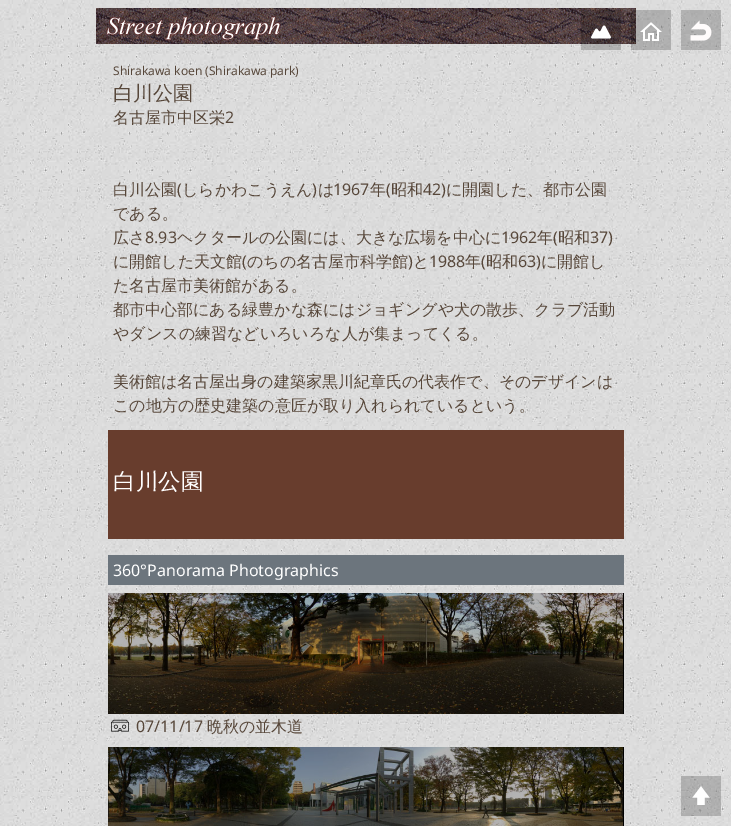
%!PS-Adobe-3.0
%%BoundingBox: 0 0 731 826
%%LanguageLevel: 3
%%Pages: 1
%%EndComments
%%BeginProlog
/fn { [ exch dup neg 0 0 3 -1 roll 0 0 ] selectfont } def
/tx { moveto show } def
/bx { rectfill } def
/al { dup .setfillconstantalpha .setstrokeconstantalpha } def
/im { 5 dict begin { /h /w /y /x /name } { exch def } forall
  gsave x y translate w h scale
  w h 8 [w 0 0 h 0 0] name (r) file false 3 colorimage grestore end } def
%%EndProlog
%%BeginSetup
<< /PageSize [731 826] /PageUsesTransparency true >> setpagedevice
%%EndSetup
%%Page: 1 1
0 .pushpdf14devicefilter
0 826 translate 1 -1 scale
4 setmiterlimit
1 setgray
0 0 731 826 bx
(image0.raw) 0 0 731 826 im
(image4.raw) 96 8 540 36 im
0.2 al
0 setgray
581 10 40 40 bx
1 al
(image1.raw) 591 25 20 14 im
0.2 al
631 10 40 40 bx
1 al
(image2.raw) 640 22 22 19 im
0.2 al
681 10 40 40 bx
1 al
(image3.raw) 690 20 22 21 im
/NotoSans-Regular 12 fn
0.341 0.278 0.227 setrgbcolor
(Shirakawa koen \(Shirakawa park\)) 113 75 tx
/WenQuanYiZenHei-Medium 20 fn
(白川公園) 113 100 tx
/WenQuanYiZenHei-Medium 16 fn
(名古屋市中区栄) 113 123 tx
/NotoSans-Regular 16 fn
(2) 225 123 tx
/WenQuanYiZenHei-Medium 16 fn
(白川公園 しらかわこうえん は) 113 195 tx
(年 昭和) 370 195 tx
(に開園した、都市公園) 446 195 tx
/NotoSans-Regular 16 fn
(\() 177 195 tx
(\)) 312 195 tx
(1967) 333 195 tx
(\() 386 195 tx
(42\)) 423 195 tx
/WenQuanYiZenHei-Medium 16 fn
(である。) 113 219 tx
(広さ) 113 243 tx
/NotoSans-Regular 16 fn
(8.93) 145 243 tx
/WenQuanYiZenHei-Medium 16 fn
(ヘクタールの公園には、大きな広場を中心に) 177 243 tx
/NotoSans-Regular 16 fn
(1962) 501 243 tx
/WenQuanYiZenHei-Medium 16 fn
(年 昭和) 537 243 tx
/NotoSans-Regular 16 fn
(\() 553 243 tx
(37\)) 590 243 tx
/WenQuanYiZenHei-Medium 16 fn
(に開館した天文館 のちの名古屋市科学館 と) 113 267 tx
(年 昭和) 465 267 tx
(に開館し) 541 267 tx
/NotoSans-Regular 16 fn
(\() 242 267 tx
(\)) 408 267 tx
(1988) 429 267 tx
(\() 481 267 tx
(63\)) 518 267 tx
/WenQuanYiZenHei-Medium 16 fn
(た名古屋市美術館がある。) 113 291 tx
(都市中心部にある緑豊かな森にはジョギングや犬の散歩、クラブ活動) 113 315 tx
(やダンスの練習などいろいろな人が集まってくる。) 113 339 tx
(美術館は名古屋出身の建築家黒川紀章氏の代表作で、そのデザインは) 113 387 tx
(この地方の歴史建築の意匠が取り入れられているという。) 113 411 tx
0.408 0.239 0.176 setrgbcolor
108 430 516 109 bx
/WenQuanYiZenHei-Medium 22.5 fn
1 setgray
(白川公園) 113 489 tx
0.424 0.459 0.49 setrgbcolor
108 555 516 30 bx
/NotoSans-Regular 16 fn
1 setgray
(360°Panorama Photographics) 113 576 tx
0 setgray
108 593 516 121 bx
(image5.raw) 108 593 515 121 im
(image6.raw) 111 719 18 13 im
0.341 0.278 0.227 setrgbcolor
(07/11/17) 136 732 tx
/WenQuanYiZenHei-Medium 16 fn
(晩秋の並木道) 207 732 tx
0 setgray
108 747 516 79 bx
(image7.raw) 108 747 515 79 im
0.2 al
681 776 40 40 bx
1 al
(image8.raw) 692 786 18 19 im
.poppdf14devicefilter showpage
%%EOF
